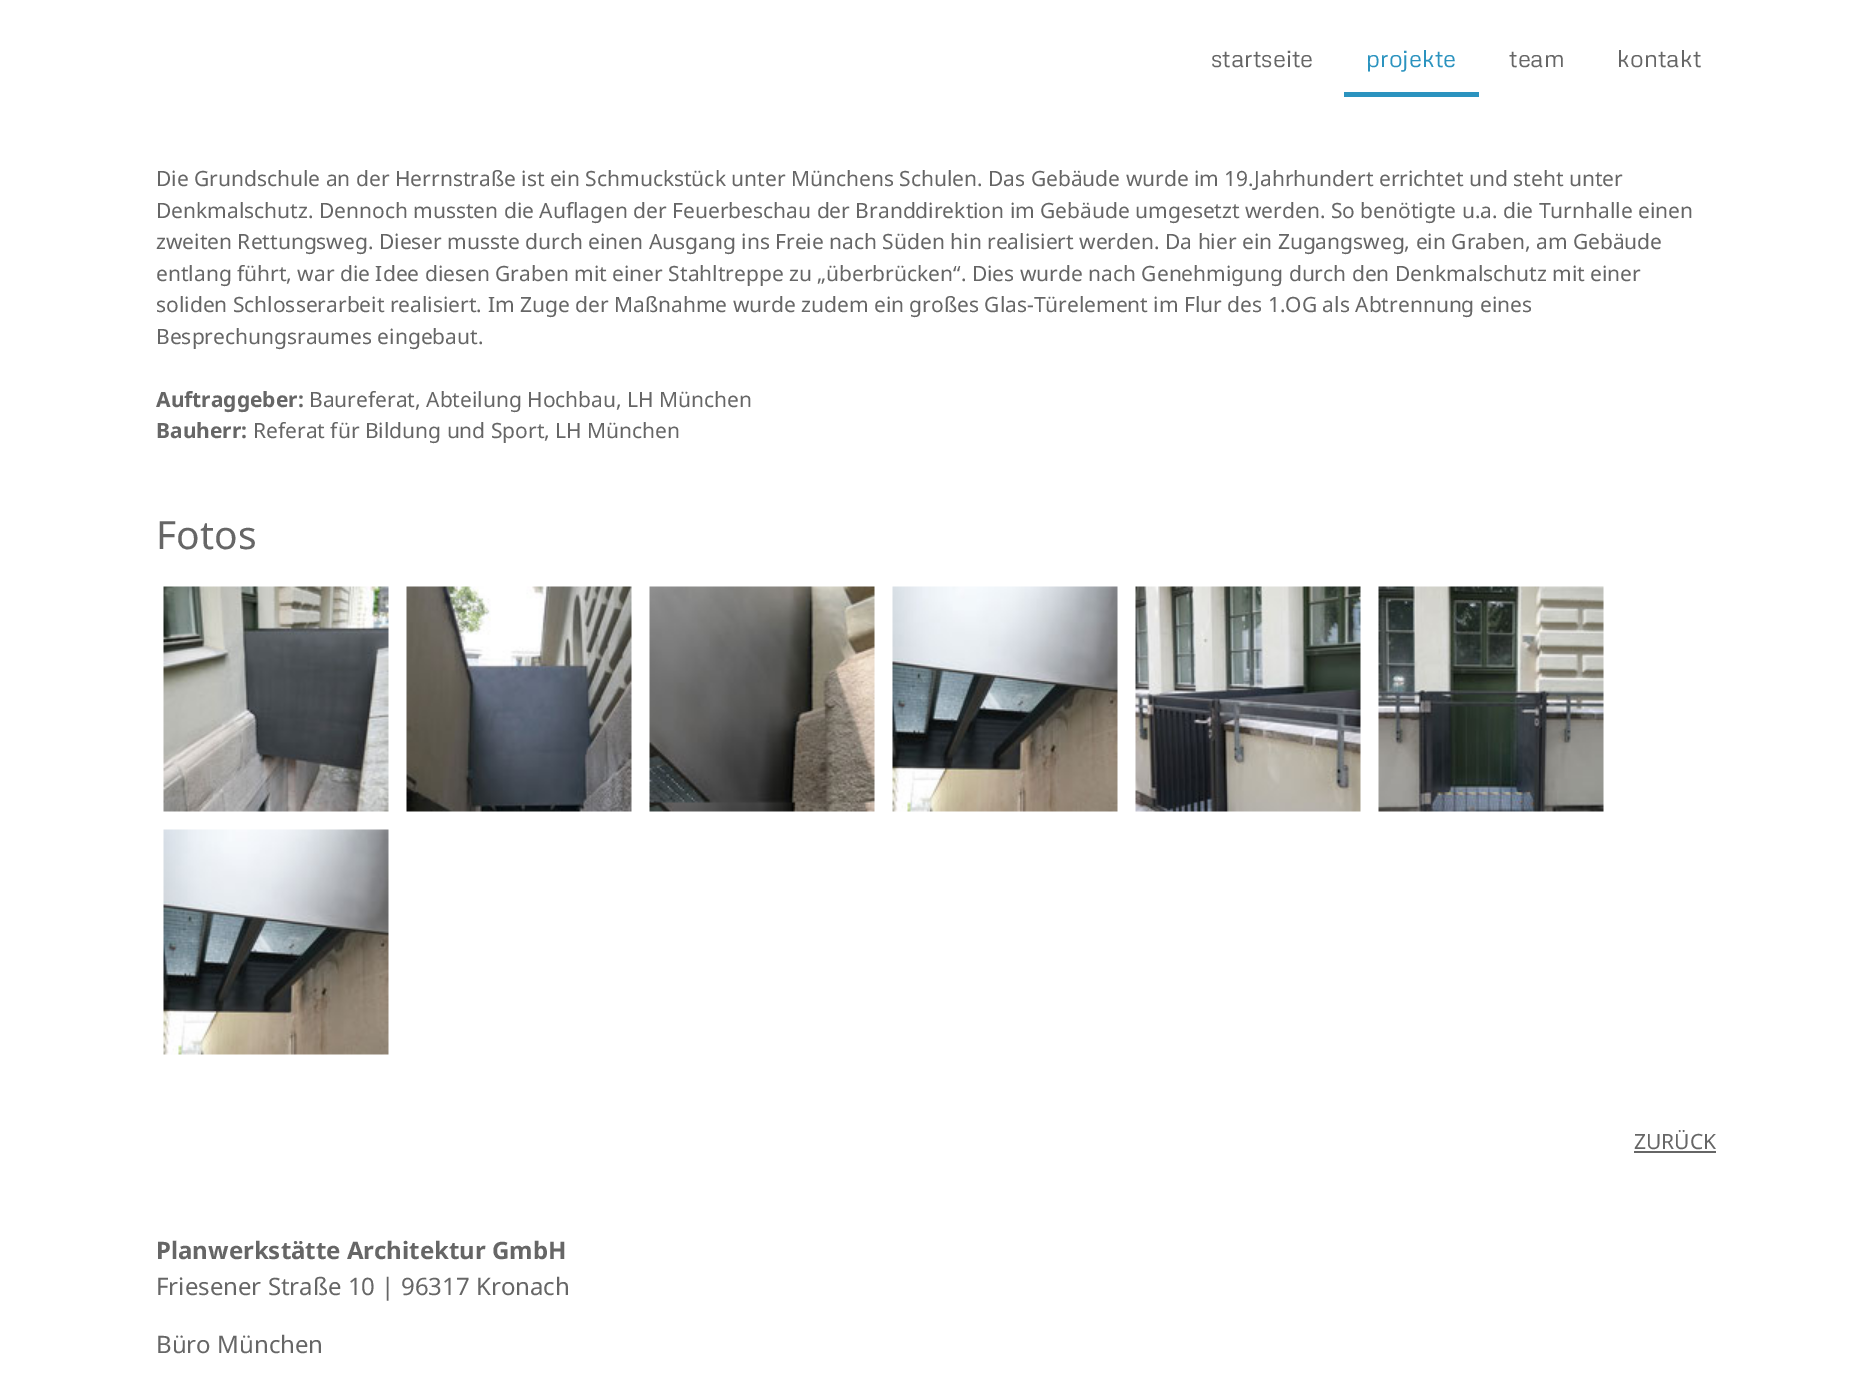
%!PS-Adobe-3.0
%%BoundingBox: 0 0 1871 1373
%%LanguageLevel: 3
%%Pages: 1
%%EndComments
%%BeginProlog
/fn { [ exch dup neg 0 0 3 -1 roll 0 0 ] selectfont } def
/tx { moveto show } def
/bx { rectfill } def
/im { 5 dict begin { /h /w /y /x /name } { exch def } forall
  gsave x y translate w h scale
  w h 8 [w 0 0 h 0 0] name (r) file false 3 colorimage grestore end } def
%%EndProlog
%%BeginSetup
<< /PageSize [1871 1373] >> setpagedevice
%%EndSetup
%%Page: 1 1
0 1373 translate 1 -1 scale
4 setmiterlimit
1 setgray
0 0 1871 1373 bx
/Metrophobic-Regular 24 fn
0.4 setgray
(startseite) 1211 67 tx
0.169 0.576 0.749 setrgbcolor
1344 92 135 5 bx
(projekte) 1366 67 tx
0.4 setgray
(team) 1509 67 tx
(kontakt) 1617 67 tx
/NotoSans-Regular 21 fn
(Die Grundschule an der Herrnstraße ist ein Schmuckstück unter Münchens Schulen. Das Gebäude wurde im 19.Jahrhundert errichtet und steht unter) 156 186 tx
(Denkmalschutz. Dennoch mussten die Auflagen der Feuerbeschau der Branddirektion im Gebäude umgesetzt werden. So benötigte u.a. die Turnhalle einen) 156 218 tx
(zweiten Rettungsweg. Dieser musste durch einen Ausgang ins Freie nach Süden hin realisiert werden. Da hier ein Zugangsweg, ein Graben, am Gebäude) 156 249 tx
(entlang führt, war die Idee diesen Graben mit einer Stahltreppe zu „überbrücken“. Dies wurde nach Genehmigung durch den Denkmalschutz mit einer) 156 281 tx
(soliden Schlosserarbeit realisiert. Im Zuge der Maßnahme wurde zudem ein großes Glas-Türelement im Flur des 1.OG als Abtrennung eines) 156 312 tx
(Besprechungsraumes eingebaut.) 156 344 tx
/NotoSans-Bold 21 fn
(Auftraggeber:) 156 407 tx
/NotoSans-Regular 21 fn
(Baureferat, Abteilung Hochbau, LH München) 309 407 tx
/NotoSans-Bold 21 fn
(Bauherr:) 156 438 tx
/NotoSans-Regular 21 fn
(Referat für Bildung und Sport, LH München) 253 438 tx
/NotoSans-Regular 39 fn
(Fotos) 156 549 tx
(image0.raw) 163 586 226 226 im
(image1.raw) 406 586 226 226 im
(image2.raw) 649 586 226 226 im
(image3.raw) 892 586 226 226 im
(image4.raw) 1135 586 226 226 im
(image5.raw) 1378 586 226 226 im
(image6.raw) 163 829 226 226 im
/NotoSans-Regular 21 fn
(ZURÜCK) 1634 1149 tx
1634 1151 82 2 bx
/NotoSans-Bold 24 fn
(Planwerkstätte Architektur GmbH) 156 1259 tx
/NotoSans-Regular 24 fn
(Friesener Straße 10 | 96317 Kronach) 156 1295 tx
(Büro München) 156 1353 tx
showpage
%%EOF
